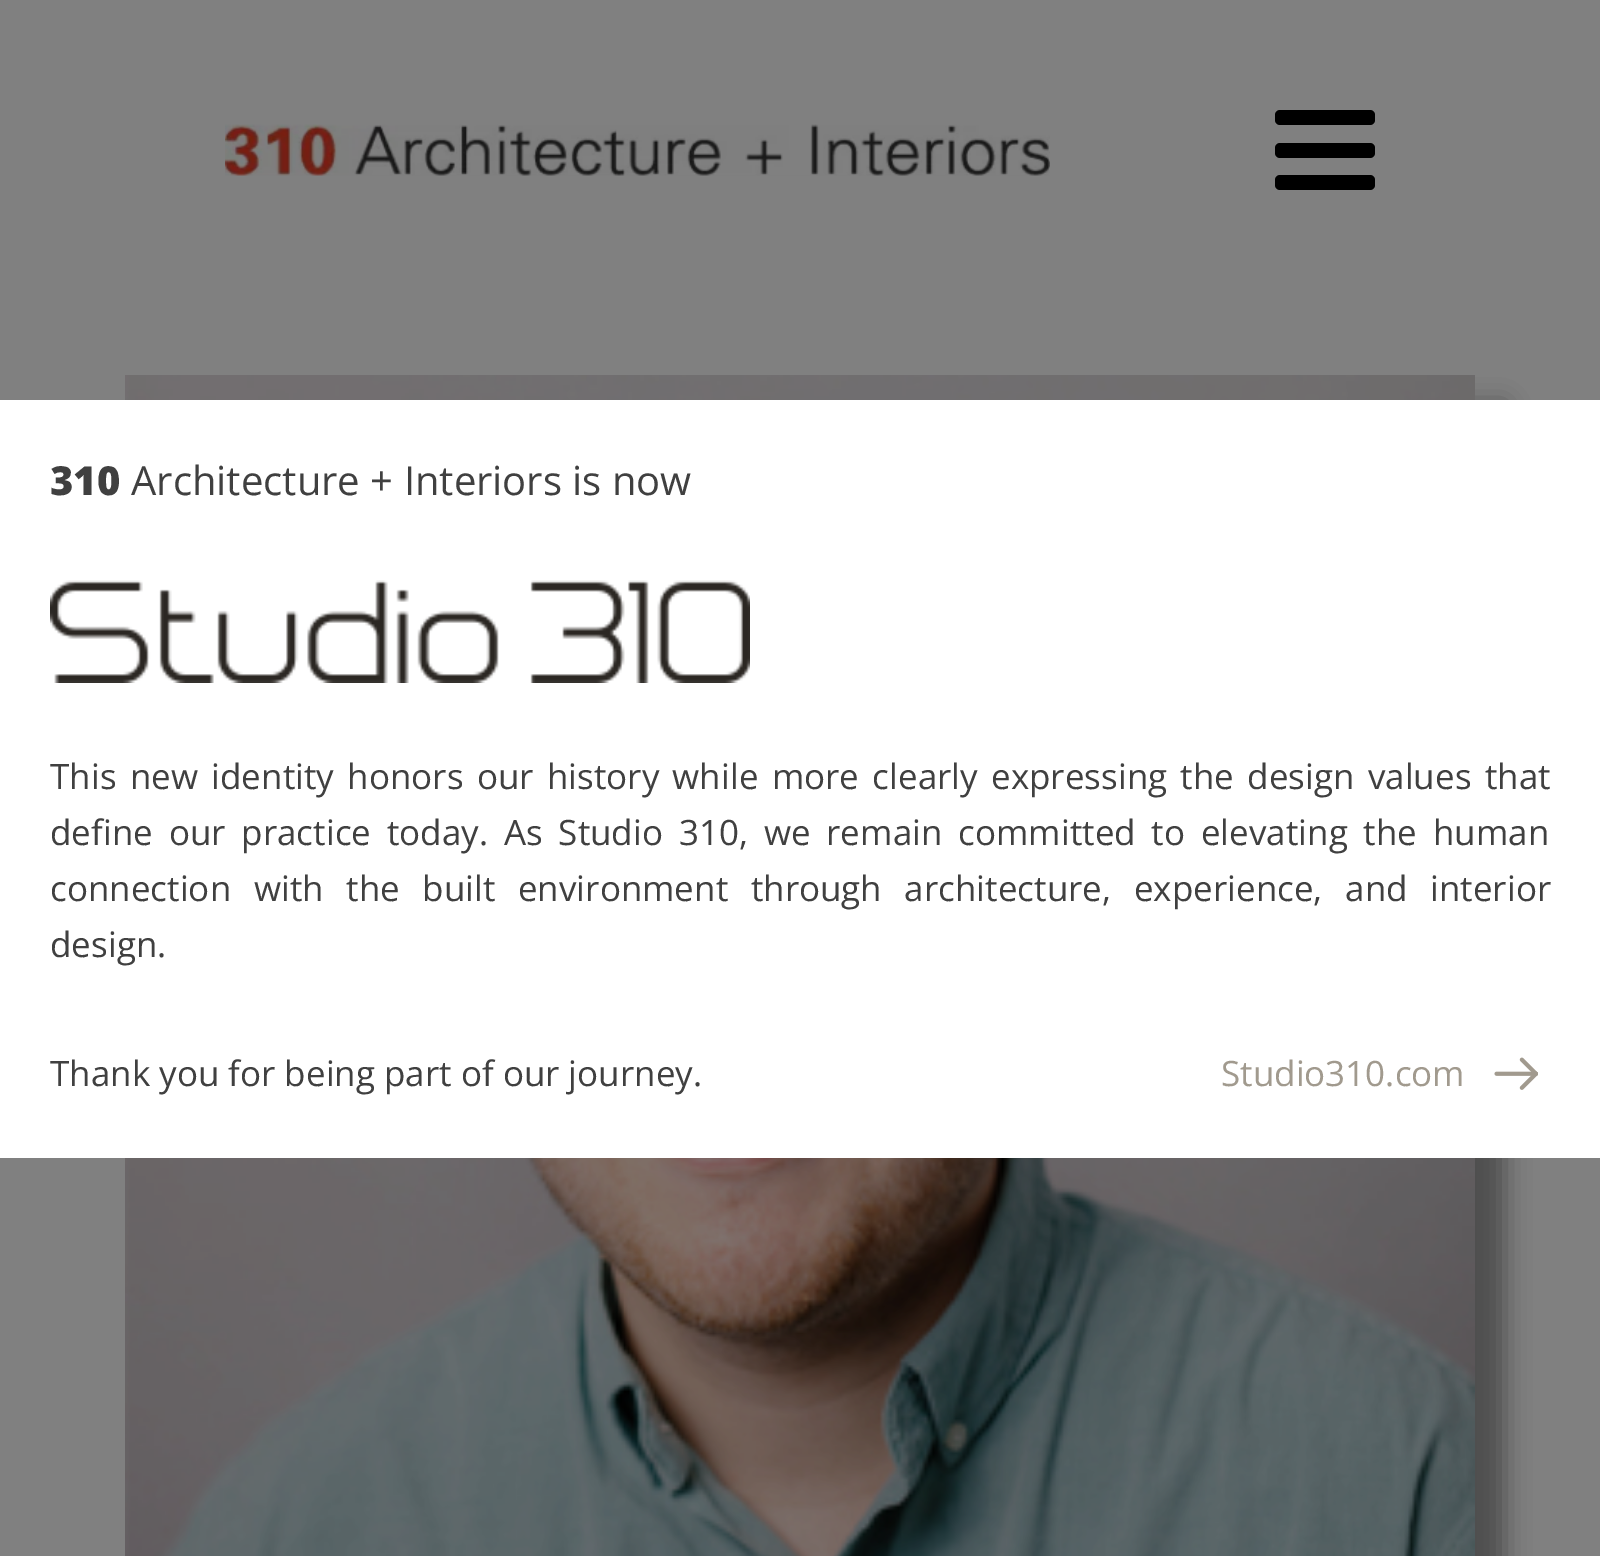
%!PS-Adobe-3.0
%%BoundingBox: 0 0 1600 1556
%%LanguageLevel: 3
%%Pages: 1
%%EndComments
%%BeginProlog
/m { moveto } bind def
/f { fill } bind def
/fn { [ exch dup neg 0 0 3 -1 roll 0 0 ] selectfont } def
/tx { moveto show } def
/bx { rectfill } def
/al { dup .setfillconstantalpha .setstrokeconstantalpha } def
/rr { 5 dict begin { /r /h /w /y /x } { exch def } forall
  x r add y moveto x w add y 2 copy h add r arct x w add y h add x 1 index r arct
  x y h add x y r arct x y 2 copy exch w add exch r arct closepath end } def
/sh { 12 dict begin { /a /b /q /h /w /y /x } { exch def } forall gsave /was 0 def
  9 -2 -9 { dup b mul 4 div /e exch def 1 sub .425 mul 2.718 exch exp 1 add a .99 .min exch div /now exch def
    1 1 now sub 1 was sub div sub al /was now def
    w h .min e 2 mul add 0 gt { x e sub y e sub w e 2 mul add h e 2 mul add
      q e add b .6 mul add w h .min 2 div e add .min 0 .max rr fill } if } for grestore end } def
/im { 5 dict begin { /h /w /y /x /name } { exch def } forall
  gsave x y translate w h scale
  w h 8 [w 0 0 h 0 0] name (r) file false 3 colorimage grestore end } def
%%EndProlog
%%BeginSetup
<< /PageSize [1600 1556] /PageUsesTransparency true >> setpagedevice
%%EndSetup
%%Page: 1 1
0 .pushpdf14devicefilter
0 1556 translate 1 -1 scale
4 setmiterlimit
0.502 setgray
0 0 1600 1556 bx
(image0.raw) 225 124 825 52 im
0 setgray
1275 110 100 15 5 rr f
1275 143 100 15 5 rr f
1275 175 100 15 5 rr f
0.102 setgray
155 405 1350 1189 0 12.5 0.5 sh
(image1.raw) 125 375 1350 1181 im
1 setgray
0 400 1600 758 bx
/OpenSans-ExtraBold 40 fn
0.251 setgray
(310) 50 495 tx
/OpenSans-Regular 40 fn
(Architecture + Interiors is now) 131 495 tx
(image2.raw) 50 580 700 103 im
/OpenSans-Regular 35 fn
50 789 m 4.25 0 32 (This new identity honors our history while more clearly expressing the design values that) widthshow
50 845 m 6.75 0 32 (define our practice today. As Studio 310, we remain committed to elevating the human) widthshow
50 901 m 13.5 0 32 (connection with the built environment through architecture, experience, and interior) widthshow
(design.) 50 957 tx
(Thank you for being part of our journey.) 50 1086 tx
0.631 0.604 0.557 setrgbcolor
(Studio310.com) 1221 1086 tx
(image3.raw) 1494 1057 44 33 im
.poppdf14devicefilter showpage
%%EOF
